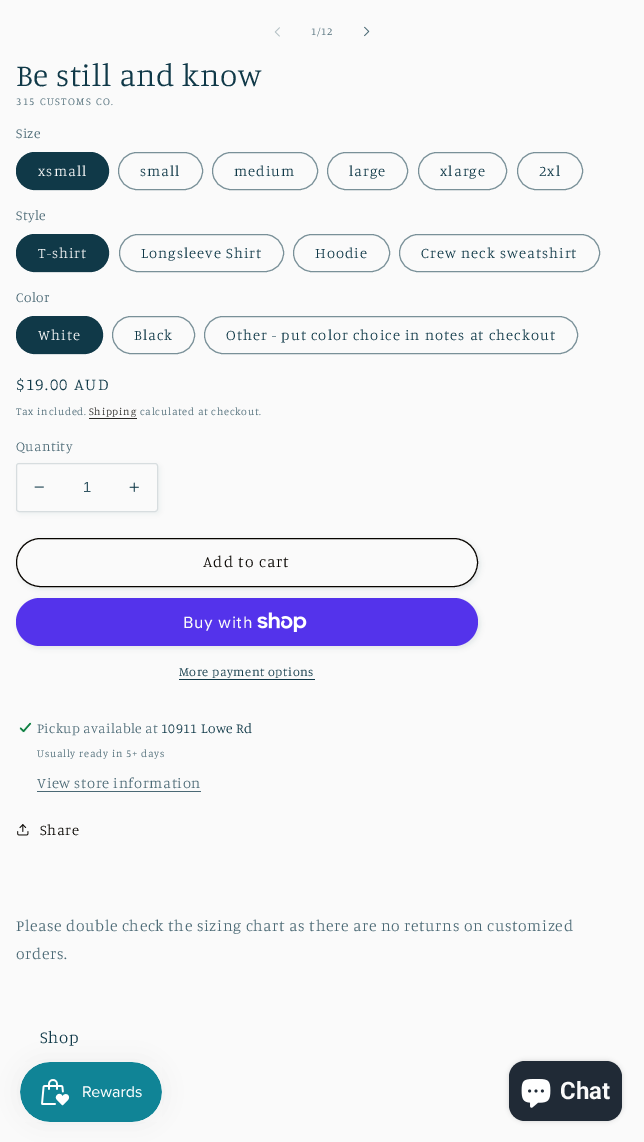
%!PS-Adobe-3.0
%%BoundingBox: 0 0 644 1142
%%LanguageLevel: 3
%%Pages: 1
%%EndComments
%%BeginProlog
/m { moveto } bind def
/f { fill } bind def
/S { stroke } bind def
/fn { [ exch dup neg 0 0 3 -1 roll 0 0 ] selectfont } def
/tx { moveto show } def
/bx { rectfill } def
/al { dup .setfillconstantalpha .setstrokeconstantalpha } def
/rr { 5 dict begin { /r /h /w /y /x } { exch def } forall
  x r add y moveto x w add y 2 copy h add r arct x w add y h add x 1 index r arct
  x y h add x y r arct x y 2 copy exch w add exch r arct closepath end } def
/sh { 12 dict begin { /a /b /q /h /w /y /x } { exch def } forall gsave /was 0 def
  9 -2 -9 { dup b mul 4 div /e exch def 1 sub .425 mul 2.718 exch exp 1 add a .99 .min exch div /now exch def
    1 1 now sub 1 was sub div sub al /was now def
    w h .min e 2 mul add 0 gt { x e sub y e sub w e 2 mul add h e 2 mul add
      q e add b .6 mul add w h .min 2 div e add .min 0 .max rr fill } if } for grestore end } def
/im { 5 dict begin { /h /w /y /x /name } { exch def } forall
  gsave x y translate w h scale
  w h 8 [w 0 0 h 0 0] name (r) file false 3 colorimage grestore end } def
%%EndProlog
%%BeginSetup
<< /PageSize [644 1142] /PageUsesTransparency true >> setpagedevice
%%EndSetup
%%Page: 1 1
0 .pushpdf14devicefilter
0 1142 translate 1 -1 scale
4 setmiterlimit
0.98 setgray
0 0 644 1142 bx
(image0.raw) 274 27 6 10 im
/Manuale-Light 10.5 fn
0.294 0.412 0.459 setrgbcolor
311 35 m 0.75 0 (1/12) ashow
(image1.raw) 364 26 6 11 im
/Manuale-Light 31.5 fn
0.063 0.224 0.282 setrgbcolor
16 86 m 0.63 0 (Be still and know) ashow
/Manuale-Light 10.5 fn
0.294 0.412 0.459 setrgbcolor
16 105 m 1.4 0 (315 CUSTOMS CO.) ashow
/Manuale-Light 13.75 fn
16 138 m 0.4 0 (Size) ashow
0.063 0.224 0.282 setrgbcolor
16 152 93 38 19 rr f
0.55 al
16.5 152.5 92 37 18.5 rr S
/Manuale-Light 14.7 fn
1 al
0.98 setgray
38 176 m 1.05 0 (xsmall) ashow
0.475 0.565 0.596 setrgbcolor
118.5 152.5 84 37 18.5 rr S
0.063 0.224 0.282 setrgbcolor
140 176 m 1.05 0 (small) ashow
0.475 0.565 0.596 setrgbcolor
212.5 152.5 105 37 18.5 rr S
0.063 0.224 0.282 setrgbcolor
234 176 m 1.05 0 (medium) ashow
0.475 0.565 0.596 setrgbcolor
327.5 152.5 80 37 18.5 rr S
0.063 0.224 0.282 setrgbcolor
349 176 m 1.05 0 (large) ashow
0.475 0.565 0.596 setrgbcolor
418.5 152.5 88 37 18.5 rr S
0.063 0.224 0.282 setrgbcolor
440 176 m 1.05 0 (xlarge) ashow
0.475 0.565 0.596 setrgbcolor
517.5 152.5 65 37 18.5 rr S
0.063 0.224 0.282 setrgbcolor
539 176 m 1.05 0 (2xl) ashow
/Manuale-Light 13.75 fn
0.294 0.412 0.459 setrgbcolor
16 220 m 0.4 0 (Style) ashow
0.063 0.224 0.282 setrgbcolor
16 234 93 38 19 rr f
0.55 al
16.5 234.5 92 37 18.5 rr S
/Manuale-Light 14.7 fn
1 al
0.98 setgray
38 258 m 1.05 0 (T-shirt) ashow
0.475 0.565 0.596 setrgbcolor
119.5 234.5 164 37 18.5 rr S
0.063 0.224 0.282 setrgbcolor
141 258 m 1.05 0 (Longsleeve Shirt) ashow
0.475 0.565 0.596 setrgbcolor
293.5 234.5 96 37 18.5 rr S
0.063 0.224 0.282 setrgbcolor
315 258 m 1.05 0 (Hoodie) ashow
0.475 0.565 0.596 setrgbcolor
399.5 234.5 200 37 18.5 rr S
0.063 0.224 0.282 setrgbcolor
421 258 m 1.05 0 (Crew neck sweatshirt) ashow
/Manuale-Light 13.75 fn
0.294 0.412 0.459 setrgbcolor
16 302 m 0.4 0 (Color) ashow
0.063 0.224 0.282 setrgbcolor
16 316 87 38 19 rr f
0.55 al
16.5 316.5 86 37 18.5 rr S
/Manuale-Light 14.7 fn
1 al
0.98 setgray
38 340 m 1.05 0 (White) ashow
0.475 0.565 0.596 setrgbcolor
112.5 316.5 82 37 18.5 rr S
0.063 0.224 0.282 setrgbcolor
134 340 m 1.05 0 (Black) ashow
0.475 0.565 0.596 setrgbcolor
204.5 316.5 373 37 18.5 rr S
0.063 0.224 0.282 setrgbcolor
226 340 m 1.05 0 (Other - put color choice in notes at checkout) ashow
/Manuale-Light 16.75 fn
16 390 m 1.4 0 ($19.00 AUD) ashow
/Manuale-Light 10.5 fn
0.294 0.412 0.459 setrgbcolor
16 415 m 0.75 0 (Tax included.) ashow
0.169 0.161 0.149 setrgbcolor
89 415 m 0.75 0 (Shipping) ashow
89 418 48 1 bx
0.294 0.412 0.459 setrgbcolor
140 415 m 0.75 0 (calculated at checkout.) ashow
/Manuale-Light 13.75 fn
16 451 m 0.4 0 (Quantity) ashow
0.063 0.224 0.282 setrgbcolor
18 465 142 49 3 2.5 0.05 sh
0.98 setgray
16 463 142 49 3 rr f
(image2.raw) 34 486 10 2 im
(image3.raw) 129 482 10 10 im
0.843 0.867 0.875 setrgbcolor
16.5 463.5 141 48 2.5 rr S
/LiberationSans-Regular 14.7 fn
0.2 0.337 0.388 setrgbcolor
(1) 83 492 tx
0.063 0.224 0.282 setrgbcolor
18 540 462 49 24.5 2.5 0.1 sh
0.98 setgray
16 538 462 49 24.5 rr f
16.5 538.5 461 48 24 rr S
0.027 0.016 0 setrgbcolor
16.5 538.5 461 48 24 rr S
/Manuale-Light 15.75 fn
203 567 m 1.05 0 (Add to cart) ashow
0.063 0.224 0.282 setrgbcolor
18 600 462 48 24 2.5 0.1 sh
0.329 0.2 0.922 setrgbcolor
16 598 462 48 24 rr f
/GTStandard-Regular 16 fn
0.98 setgray
183 628 m 0.63 0 (Buy with) ashow
(image4.raw) 257 612 50 20 im
/Manuale-Light 12.6 fn
0.063 0.224 0.282 setrgbcolor
179 676 m 0.5 0 (More payment options) ashow
179 679 136 1 bx
(image5.raw) 19 722 13 11 im
/Manuale-Light 13.75 fn
0.294 0.412 0.459 setrgbcolor
37 733 m 0.4 0 (Pickup available at) ashow
0.063 0.224 0.282 setrgbcolor
161 733 m 0.4 0 (10911 Lowe Rd) ashow
/Manuale-Light 10.5 fn
0.294 0.412 0.459 setrgbcolor
37 757 m 0.75 0 (Usually ready in 5+ days) ashow
/Manuale-Light 14.7 fn
37 788 m 0.63 0 (View store information) ashow
37 791 164 1 bx
(image6.raw) 17 824 12 12 im
0.027 0.016 0 setrgbcolor
40 835 m 0.63 0 (Share) ashow
/Manuale-Light 15.75 fn
0.294 0.412 0.459 setrgbcolor
16 931 m 0.63 0 (Please double check the sizing chart as there are no returns on customized) ashow
16 959 m 0.63 0 (orders.) ashow
0 setgray
20 1062 142 60 30 12.5 0.05 sh
(image7.raw) 20 1062 142 60 im
/Manuale-Light 16.75 fn
0.063 0.224 0.282 setrgbcolor
40 1043 m 0.63 0 (Shop) ashow
0 setgray
509 1061 113 60 16 2.5 0.15 sh
0.125 0.165 0.212 setrgbcolor
509 1061 113 60 16 rr f
(image8.raw) 521 1079 30 29 im
/Roboto-Bold 24 fn
0.98 setgray
(Chat) 560 1099 tx
.poppdf14devicefilter showpage
%%EOF
